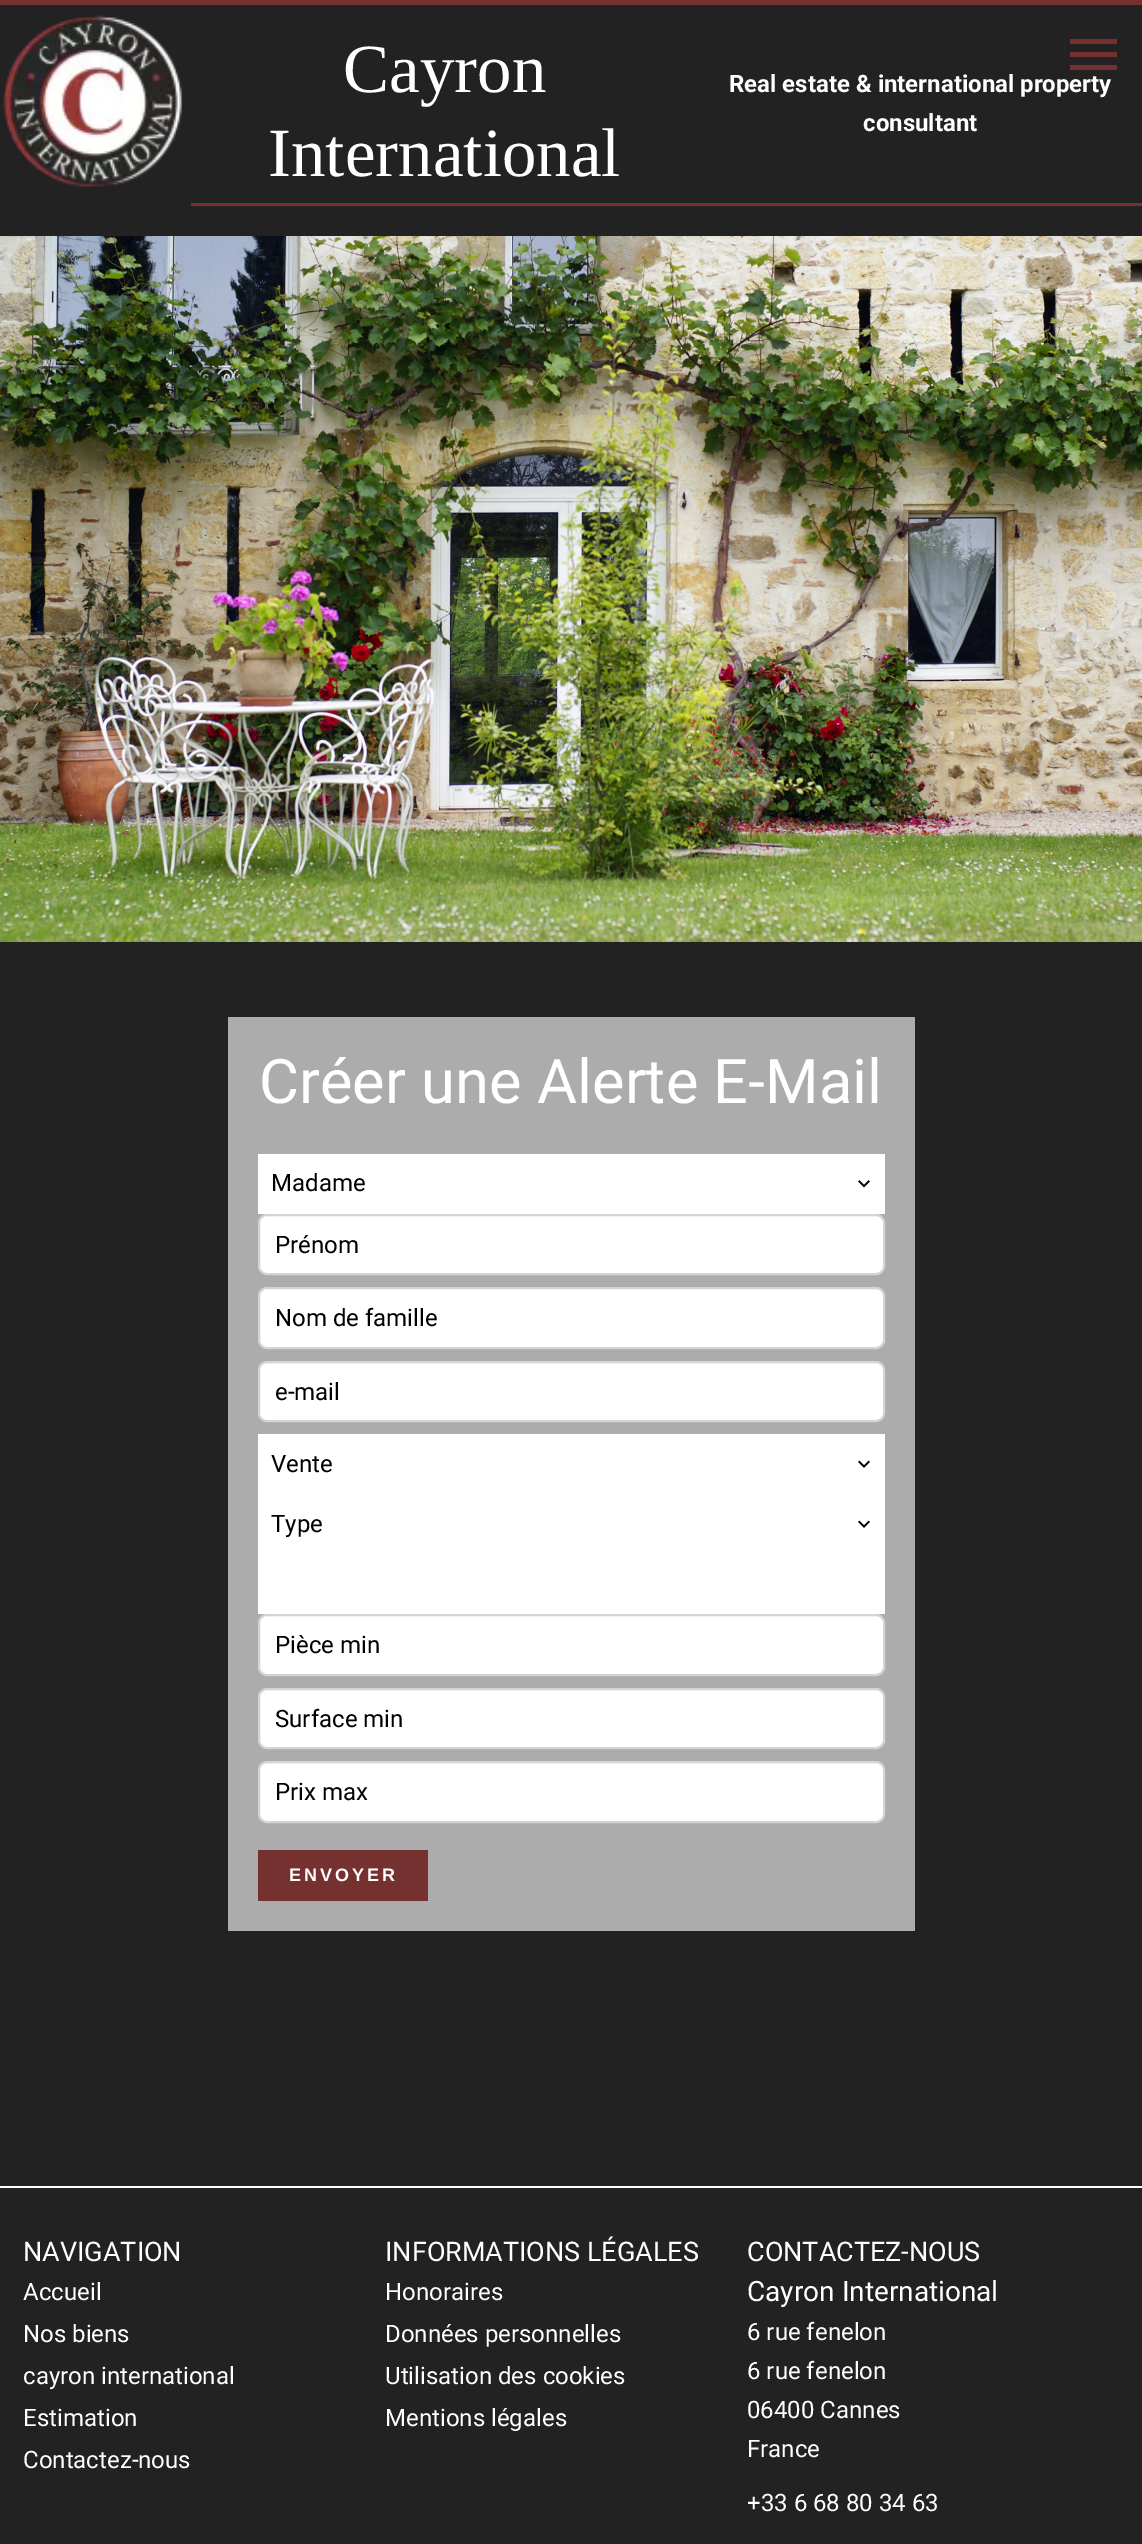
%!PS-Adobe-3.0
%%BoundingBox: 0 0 1142 2544
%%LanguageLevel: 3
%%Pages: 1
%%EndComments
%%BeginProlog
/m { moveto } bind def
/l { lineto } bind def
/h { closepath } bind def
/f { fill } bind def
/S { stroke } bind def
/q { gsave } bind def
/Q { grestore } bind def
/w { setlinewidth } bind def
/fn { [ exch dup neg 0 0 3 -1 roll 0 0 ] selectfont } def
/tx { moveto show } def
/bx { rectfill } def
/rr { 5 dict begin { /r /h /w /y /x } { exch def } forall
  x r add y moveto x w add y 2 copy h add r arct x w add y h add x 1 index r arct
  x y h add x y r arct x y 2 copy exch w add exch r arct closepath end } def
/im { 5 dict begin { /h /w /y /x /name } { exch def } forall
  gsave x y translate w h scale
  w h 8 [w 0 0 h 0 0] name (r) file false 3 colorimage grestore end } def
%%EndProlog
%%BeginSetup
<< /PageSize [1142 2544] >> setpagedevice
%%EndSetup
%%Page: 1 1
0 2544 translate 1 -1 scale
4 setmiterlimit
0.133 setgray
0 0 1142 2544 bx
0.459 0.192 0.184 setrgbcolor
0 0 1142 5 bx
1070 39 m 1117 39 l 1117 44 l 1070 44 l h 1070 52 m 1117 52 l 1117 57 l 1070 57 l h 1070 65 m 1117 65 l 1117 70 l 1070 70 l h f
(image0.raw) 3 15 180 173 im
191 203 951 3 bx
/LiberationSerif-Regular 69 fn
1 setgray
(Cayron) 343 92 tx
(International) 268 176 tx
/Roboto-Bold 24 fn
(Real estate & international property) 729 92 tx
(consultant) 863 131 tx
(image1.raw) 0 236 1142 706 im
0.675 setgray
228 1017 687 914 bx
/Roboto-Regular 61.5 fn
1 setgray
(Créer une Alerte E-Mail) 259 1103 tx
258 1154 627 60 bx
/Roboto-Regular 24 fn
0 setgray
(Madame) 271 1191 tx
(image2.raw) 858 1180 12 8 im
1 setgray
259 1215 625 59 8 rr q f Q
0.82 0.835 0.859 setrgbcolor
2 w
S
0 setgray
(Prénom) 275 1253 tx
1 setgray
259 1288 625 60 8 rr q f Q
0.82 0.835 0.859 setrgbcolor
S
0 setgray
(Nom de famille) 275 1326 tx
1 setgray
259 1362 625 59 8 rr q f Q
0.82 0.835 0.859 setrgbcolor
S
0 setgray
(e-mail) 275 1400 tx
1 setgray
258 1434 627 180 bx
0 setgray
(Vente) 271 1472 tx
(image3.raw) 858 1460 12 8 im
(Type) 271 1532 tx
(image3.raw) 858 1520 12 8 im
1 setgray
259 1615 625 60 8 rr q f Q
0.82 0.835 0.859 setrgbcolor
S
0 setgray
(Pièce min) 275 1653 tx
1 setgray
259 1689 625 59 8 rr q f Q
0.82 0.835 0.859 setrgbcolor
S
0 setgray
(Surface min) 275 1727 tx
1 setgray
259 1762 625 60 8 rr q f Q
0.82 0.835 0.859 setrgbcolor
S
0 setgray
(Prix max) 275 1800 tx
0.459 0.192 0.184 setrgbcolor
258 1850 170 51 bx
/LiberationSans-Bold 18 fn
1 setgray
289 1881 m 3 0 (ENVOYER) ashow
0 2186 1142 2 bx
/Roboto-Regular 27 fn
(NAVIGATION) 23 2261 tx
/Roboto-Regular 24 fn
(Accueil) 23 2300 tx
(Nos biens) 23 2342 tx
(cayron international) 23 2384 tx
(Estimation) 23 2426 tx
(Contactez-nous) 23 2468 tx
/Roboto-Regular 27 fn
(INFORMATIONS LÉGALES) 385 2261 tx
/Roboto-Regular 24 fn
(Honoraires) 385 2300 tx
(Données personnelles) 385 2342 tx
(Utilisation des cookies) 385 2384 tx
(Mentions légales) 385 2426 tx
/Roboto-Regular 27 fn
(CONTACTEZ-NOUS) 747 2261 tx
/Roboto-Regular 28 fn
(Cayron International) 747 2301 tx
/Roboto-Regular 24 fn
(6 rue fenelon) 747 2340 tx
(6 rue fenelon) 747 2379 tx
(06400 Cannes) 747 2418 tx
(France) 747 2457 tx
(+33 6 68 80 34 63) 747 2511 tx
showpage
%%EOF
